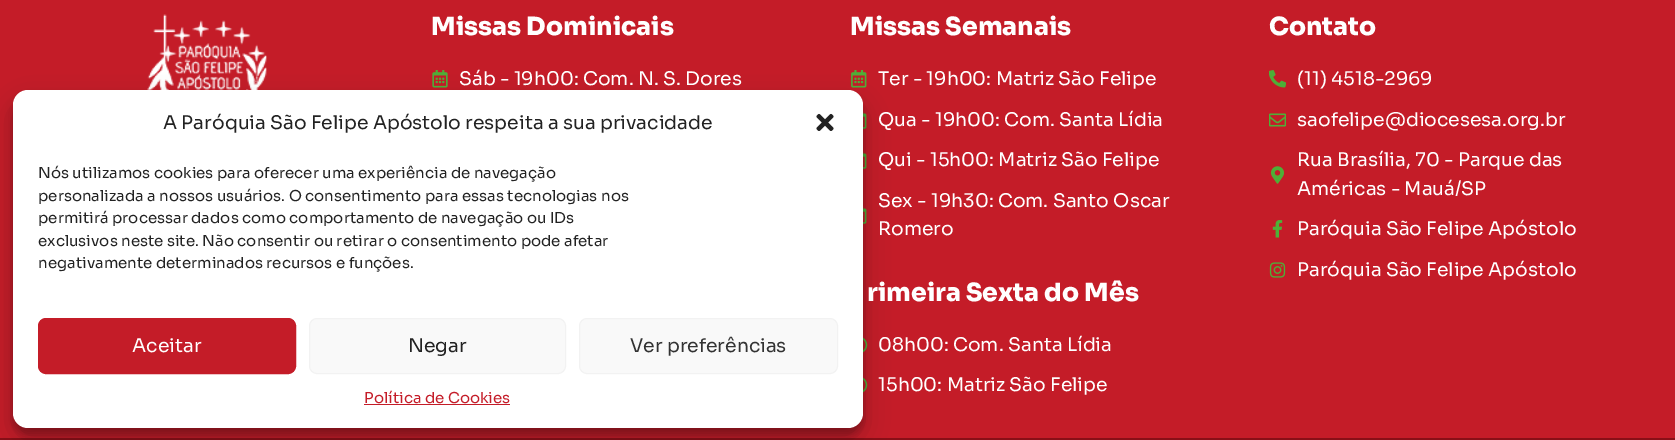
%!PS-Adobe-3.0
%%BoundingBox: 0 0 1675 440
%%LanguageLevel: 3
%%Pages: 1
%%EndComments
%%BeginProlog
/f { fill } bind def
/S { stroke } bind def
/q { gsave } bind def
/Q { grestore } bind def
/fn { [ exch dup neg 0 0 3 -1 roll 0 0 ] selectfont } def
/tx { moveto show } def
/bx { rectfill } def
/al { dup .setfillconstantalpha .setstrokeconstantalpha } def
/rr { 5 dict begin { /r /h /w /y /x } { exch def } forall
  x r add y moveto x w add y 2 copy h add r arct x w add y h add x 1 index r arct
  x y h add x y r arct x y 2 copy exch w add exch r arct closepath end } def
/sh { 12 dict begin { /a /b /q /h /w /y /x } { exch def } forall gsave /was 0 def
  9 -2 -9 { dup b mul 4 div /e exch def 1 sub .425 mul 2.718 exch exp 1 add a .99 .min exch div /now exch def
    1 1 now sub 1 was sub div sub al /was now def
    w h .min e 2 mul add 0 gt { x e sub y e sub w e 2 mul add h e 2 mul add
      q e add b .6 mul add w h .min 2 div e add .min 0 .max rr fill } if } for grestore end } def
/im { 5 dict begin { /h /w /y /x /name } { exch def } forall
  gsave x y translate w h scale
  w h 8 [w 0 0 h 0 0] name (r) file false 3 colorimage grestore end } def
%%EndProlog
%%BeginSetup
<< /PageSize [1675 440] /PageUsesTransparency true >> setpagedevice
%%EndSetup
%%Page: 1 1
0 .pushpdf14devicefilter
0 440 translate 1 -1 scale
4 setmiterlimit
0.769 0.11 0.157 setrgbcolor
0 0 1675 440 bx
(image1.raw) 147 14 120 76 im
(image2.raw) 432 70 16 18 im
(image3.raw) 851 70 16 18 im
(image4.raw) 863 111 4 18 im
(image4.raw) 863 151 4 18 im
(image4.raw) 863 206 4 18 im
(image5.raw) 863 337 5 16 im
(image5.raw) 863 377 5 16 im
0.537 0.059 0.09 setrgbcolor
0 438 1675 2 bx
0 setgray
13 98 850 337 15 4 0.23 sh
13 103 850 337 15 12.5 0.19 sh
1 setgray
13 90 850 338 15 rr f
/Sora-Regular 18.75 fn
0.133 setgray
(A Paróquia São Felipe Apóstolo respeita a sua privacidade) 163 129 tx
(image0.raw) 816 113 18 18 im
/Sora-Regular 15 fn
(Nós utilizamos cookies para oferecer uma experiência de navegação) 38 178 tx
(personalizada a nossos usuários. O consentimento para essas tecnologias nos) 38 201 tx
(permitirá processar dados como comportamento de navegação ou IDs) 38 223 tx
(exclusivos neste site. Não consentir ou retirar o consentimento pode afetar) 38 246 tx
(negativamente determinados recursos e funções.) 38 268 tx
0.769 0.11 0.157 setrgbcolor
38.5 318.5 257 55 7.5 rr q f Q
S
/Sora-Regular 18.75 fn
1 setgray
(Aceitar) 132 352 tx
0.976 setgray
309.5 318.5 256 55 7.5 rr q f Q
0.949 setgray
S
0.133 setgray
(Negar) 408 352 tx
0.976 setgray
579.5 318.5 258 55 7.5 rr q f Q
0.949 setgray
S
0.2 setgray
(Ver preferências) 630 352 tx
/Sora-Regular 15 fn
0.769 0.11 0.157 setrgbcolor
(Política de Cookies) 364 403 tx
364 404 146 1 bx
/Sora-ExtraBold 25 fn
1 setgray
(Missas Dominicais) 431 35 tx
/Sora-Regular 18.75 fn
(Sáb - 19h00: Com. N. S. Dores) 459 85 tx
/Sora-ExtraBold 25 fn
(Missas Semanais) 850 35 tx
/Sora-Regular 18.75 fn
(Ter - 19h00: Matriz São Felipe) 878 85 tx
(Qua - 19h00: Com. Santa Lídia) 878 126 tx
(Qui - 15h00: Matriz São Felipe) 878 166 tx
(Sex - 19h30: Com. Santo Oscar) 878 207 tx
(Romero) 878 235 tx
/Sora-ExtraBold 25 fn
(rimeira Sexta do Mês) 867 301 tx
/Sora-Regular 18.75 fn
(08h00: Com. Santa Lídia) 878 351 tx
(15h00: Matriz São Felipe) 878 391 tx
/Sora-ExtraBold 25 fn
(Contato) 1269 35 tx
(image6.raw) 1269 70 17 18 im
/Sora-Regular 18.75 fn
(\(11\) 4518-2969) 1297 85 tx
(image7.raw) 1269 113 17 14 im
(saofelipe@diocesesa.org.br) 1297 126 tx
(image8.raw) 1270 166 15 18 im
(Rua Brasília, 70 - Parque das) 1297 166 tx
(Américas - Mauá/SP) 1297 195 tx
(image9.raw) 1272 220 11 18 im
(Paróquia São Felipe Apóstolo) 1297 235 tx
(image10.raw) 1269 262 17 16 im
(Paróquia São Felipe Apóstolo) 1297 276 tx
.poppdf14devicefilter showpage
%%EOF
